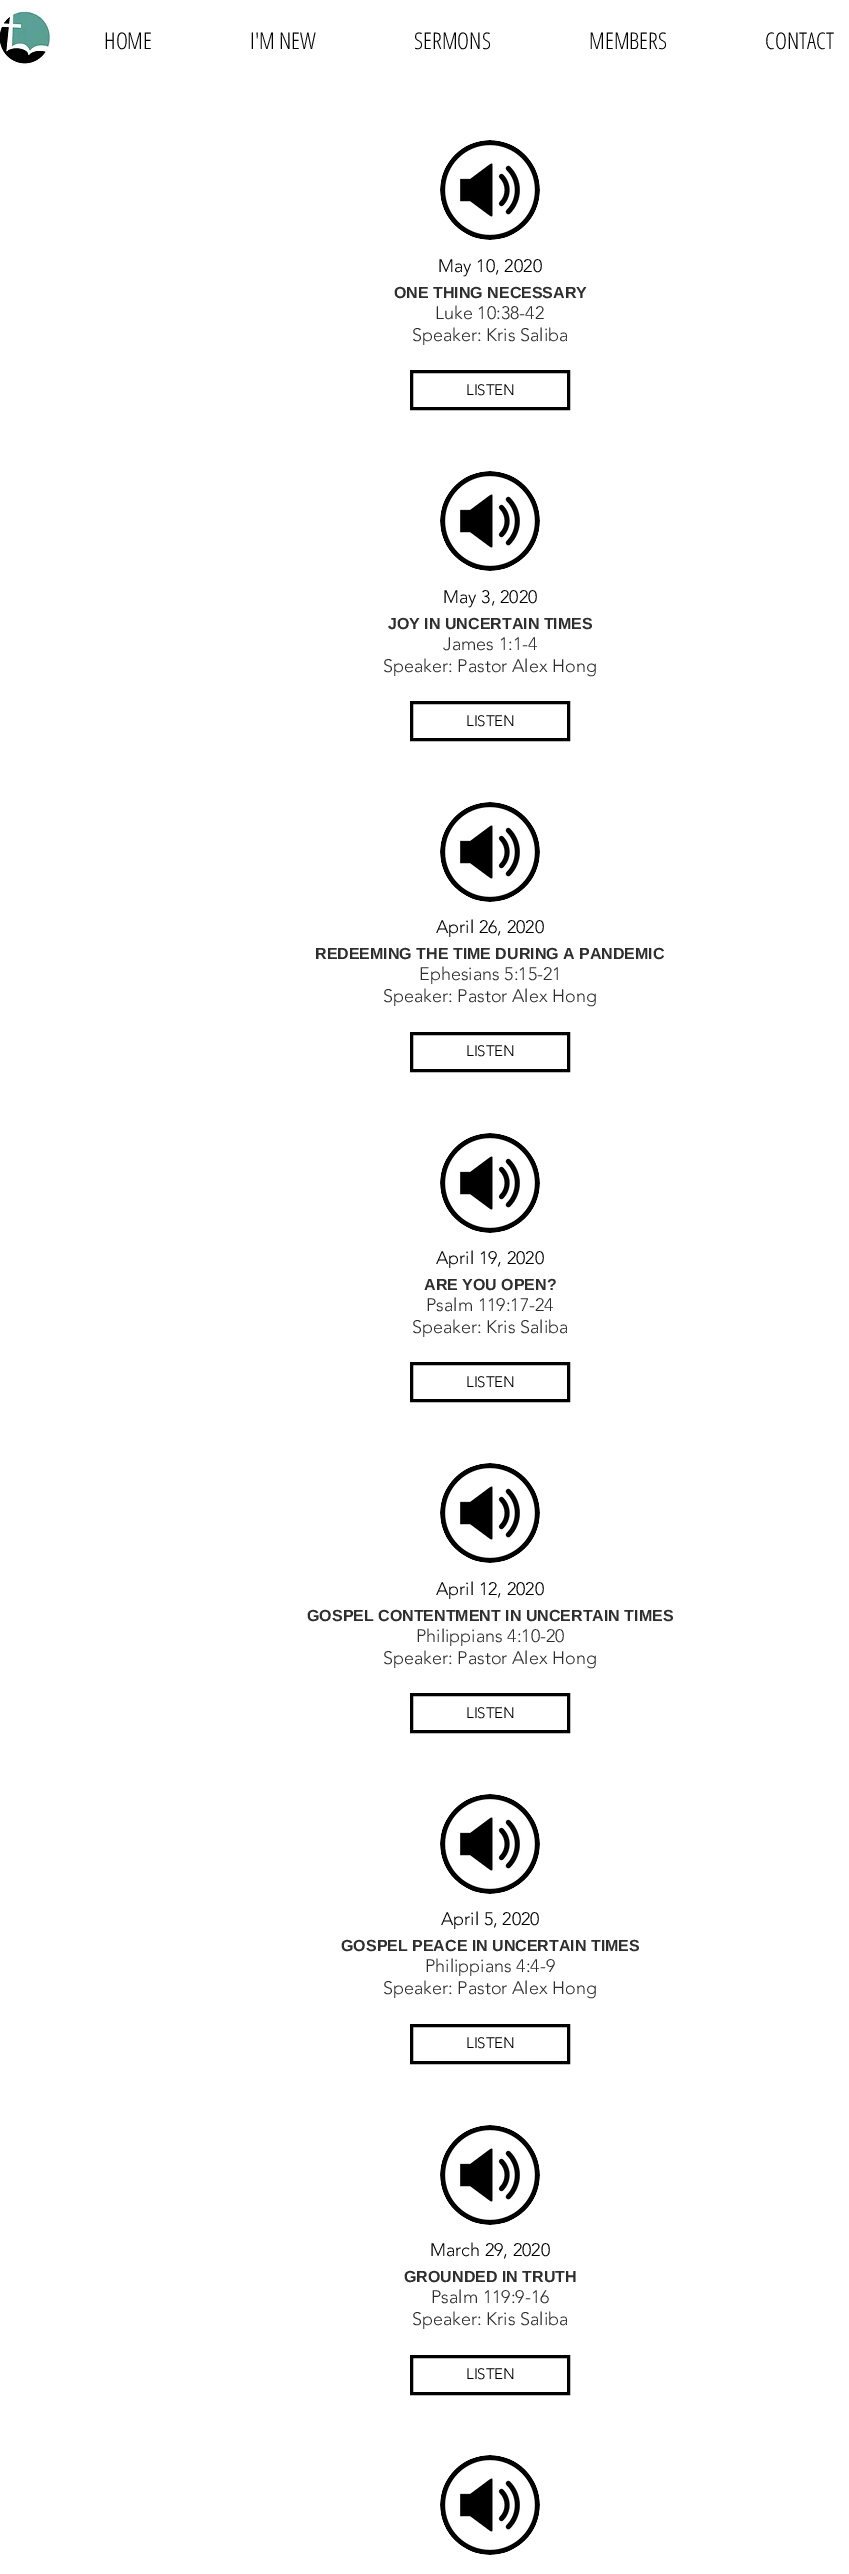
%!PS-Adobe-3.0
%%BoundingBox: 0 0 849 2574
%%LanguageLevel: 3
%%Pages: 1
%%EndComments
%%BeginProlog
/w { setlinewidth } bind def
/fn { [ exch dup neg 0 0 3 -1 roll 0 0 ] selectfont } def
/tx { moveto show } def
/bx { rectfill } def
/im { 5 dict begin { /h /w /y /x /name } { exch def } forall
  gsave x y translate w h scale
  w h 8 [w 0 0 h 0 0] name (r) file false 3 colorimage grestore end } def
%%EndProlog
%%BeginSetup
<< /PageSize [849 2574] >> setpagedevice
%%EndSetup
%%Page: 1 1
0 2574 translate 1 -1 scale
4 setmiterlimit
1 setgray
0 0 849 2574 bx
(image0.raw) 0 7 51 60 im
/OpenSansCondensed-Light 23 fn
0 setgray
(HOME) 104 49 tx
(I'M NEW) 250 49 tx
(SERMONS) 414 49 tx
(MEMBERS) 589 49 tx
(CONTACT) 765 49 tx
(image1.raw) 440 140 100 100 im
/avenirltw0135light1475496-Light 18 fn
(May 10, 2020) 438 272 tx
/LiberationSans-Bold 16 fn
0.184 0.18 0.18 setrgbcolor
(ONE THING NECESSARY) 394 298 tx
/avenirltw0135light1475496-Light 18 fn
(Luke 10:38-42) 435 319 tx
(Speaker: Kris Saliba) 412 341 tx
0 setgray
3 w
411.5 371.5 157 37 rectstroke
/avenirltw0135light1475496-Light 15 fn
(LISTEN) 466 395 tx
(image1.raw) 440 471 100 100 im
/avenirltw0135light1475496-Light 18 fn
(May 3, 2020) 443 603 tx
/LiberationSans-Bold 16 fn
0.184 0.18 0.18 setrgbcolor
(JOY IN UNCERTAIN TIMES) 388 629 tx
/avenirltw0135light1475496-Light 18 fn
(James 1:1-4) 443 650 tx
(Speaker: Pastor Alex Hong) 383 672 tx
0 setgray
411.5 702.5 157 37 rectstroke
/avenirltw0135light1475496-Light 15 fn
(LISTEN) 466 726 tx
(image1.raw) 440 802 100 100 im
/avenirltw0135light1475496-Light 18 fn
(April 26, 2020) 436 933 tx
/LiberationSans-Bold 16 fn
0.184 0.18 0.18 setrgbcolor
(REDEEMING THE TIME DURING A PANDEMIC) 315 959 tx
/avenirltw0135light1475496-Light 18 fn
(Ephesians 5:15-21) 419 980 tx
(Speaker: Pastor Alex Hong) 383 1002 tx
0 setgray
411.5 1033.5 157 37 rectstroke
/avenirltw0135light1475496-Light 15 fn
(LISTEN) 466 1056 tx
(image1.raw) 440 1133 100 100 im
/avenirltw0135light1475496-Light 18 fn
(April 19, 2020) 436 1264 tx
/LiberationSans-Bold 16 fn
0.184 0.18 0.18 setrgbcolor
(ARE YOU OPEN?) 424 1290 tx
/avenirltw0135light1475496-Light 18 fn
(Psalm 119:17-24) 426 1311 tx
(Speaker: Kris Saliba) 412 1333 tx
0 setgray
411.5 1363.5 157 37 rectstroke
/avenirltw0135light1475496-Light 15 fn
(LISTEN) 466 1387 tx
(image1.raw) 440 1463 100 100 im
/avenirltw0135light1475496-Light 18 fn
(April 12, 2020) 436 1595 tx
/LiberationSans-Bold 16 fn
0.184 0.18 0.18 setrgbcolor
(GOSPEL CONTENTMENT IN UNCERTAIN TIMES) 307 1621 tx
/avenirltw0135light1475496-Light 18 fn
(Philippians 4:10-20) 416 1642 tx
(Speaker: Pastor Alex Hong) 383 1664 tx
0 setgray
411.5 1694.5 157 37 rectstroke
/avenirltw0135light1475496-Light 15 fn
(LISTEN) 466 1718 tx
(image2.raw) 440 1794 100 100 im
/avenirltw0135light1475496-Light 18 fn
(April 5, 2020) 441 1925 tx
/LiberationSans-Bold 16 fn
0.184 0.18 0.18 setrgbcolor
(GOSPEL PEACE IN UNCERTAIN TIMES) 341 1951 tx
/avenirltw0135light1475496-Light 18 fn
(Philippians 4:4-9) 425 1972 tx
(Speaker: Pastor Alex Hong) 383 1994 tx
0 setgray
411.5 2025.5 157 37 rectstroke
/avenirltw0135light1475496-Light 15 fn
(LISTEN) 466 2048 tx
(image1.raw) 440 2125 100 100 im
/avenirltw0135light1475496-Light 18 fn
(March 29, 2020) 430 2256 tx
/LiberationSans-Bold 16 fn
0.184 0.18 0.18 setrgbcolor
(GROUNDED IN TRUTH) 404 2282 tx
/avenirltw0135light1475496-Light 18 fn
(Psalm 119:9-16) 431 2303 tx
(Speaker: Kris Saliba) 412 2325 tx
0 setgray
411.5 2356.5 157 37 rectstroke
/avenirltw0135light1475496-Light 15 fn
(LISTEN) 466 2379 tx
(image1.raw) 440 2455 100 100 im
showpage
%%EOF
